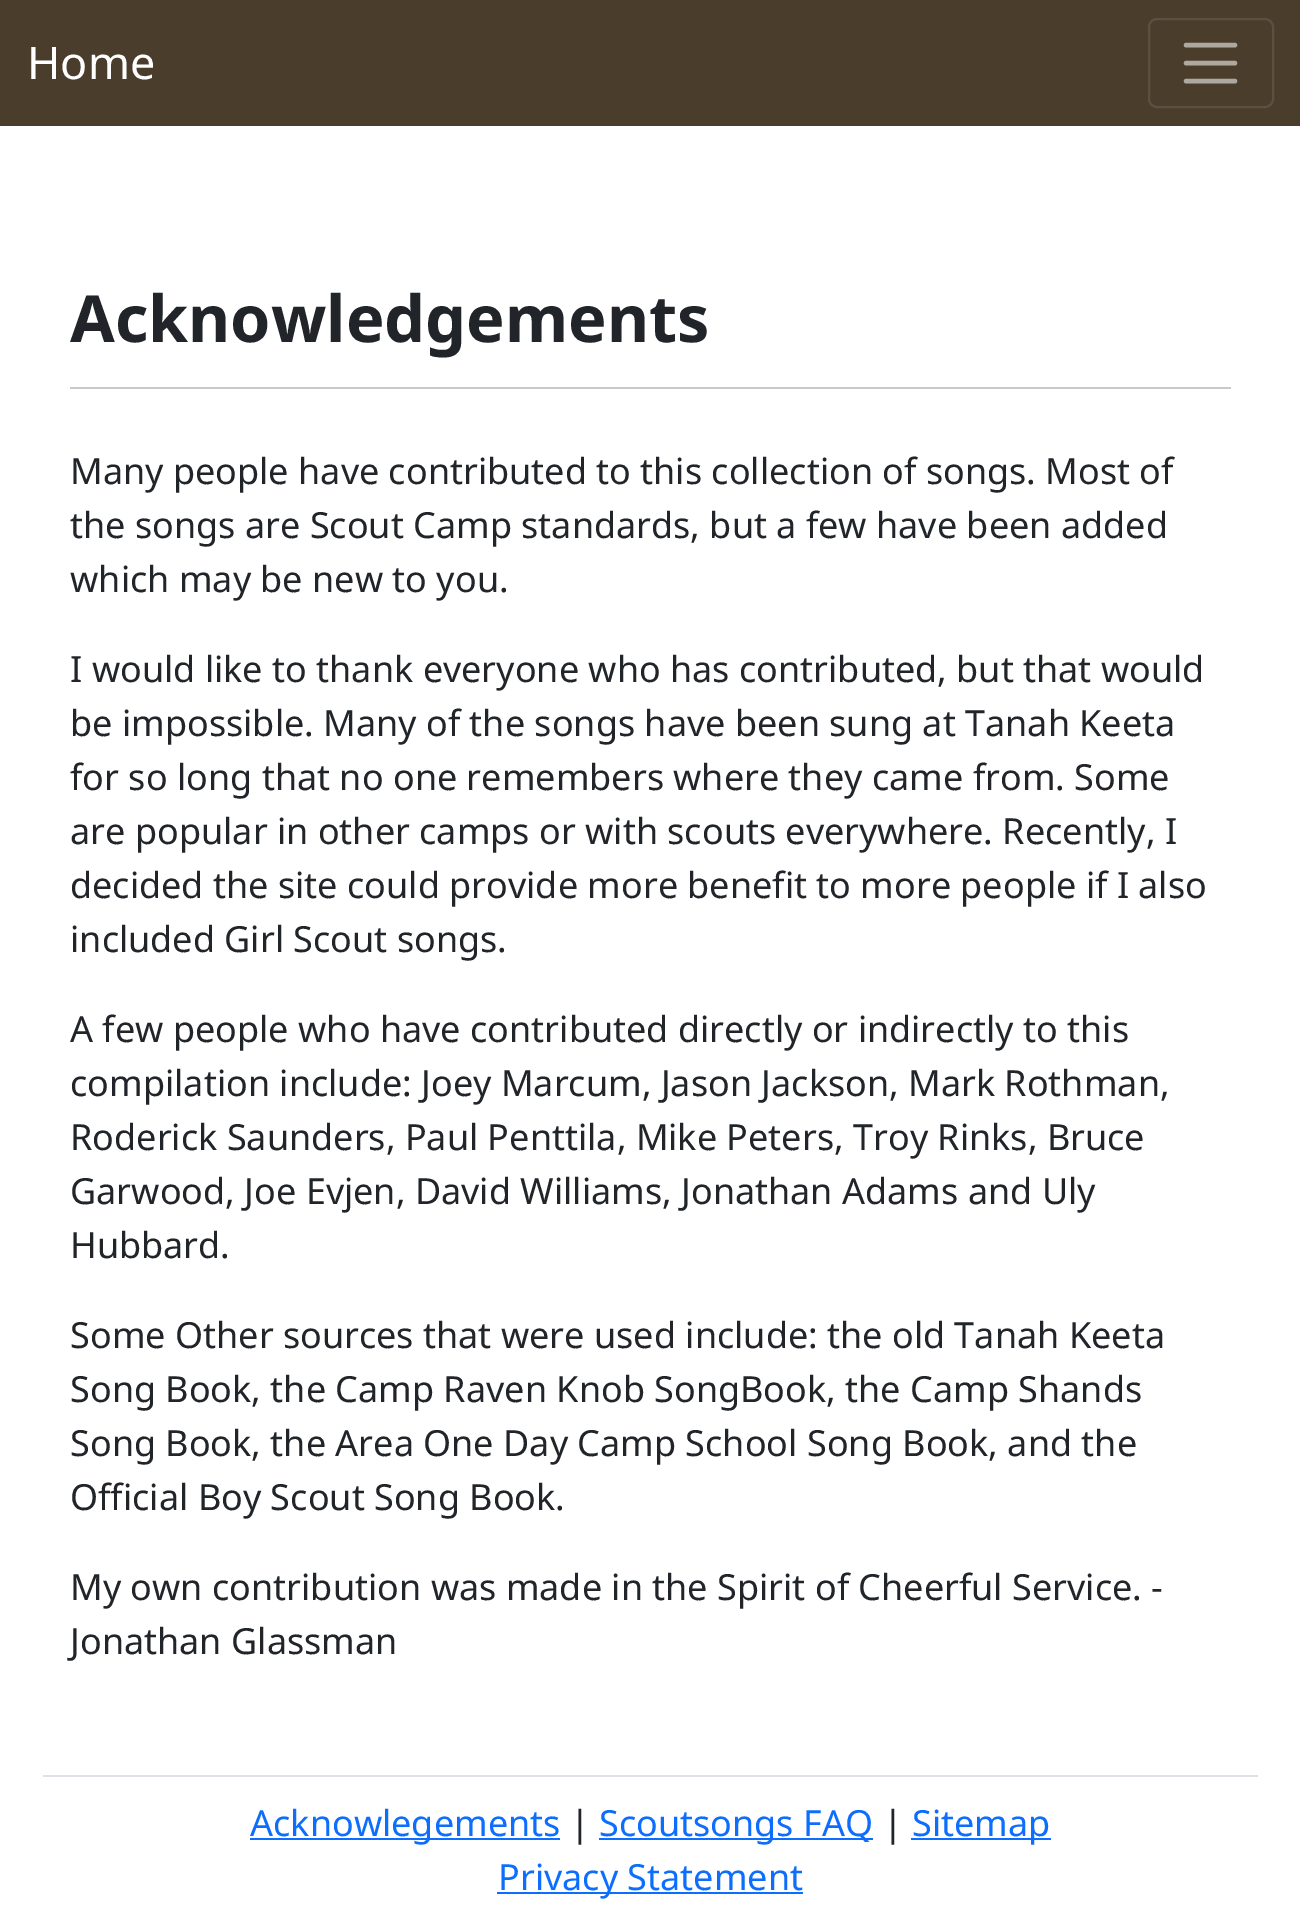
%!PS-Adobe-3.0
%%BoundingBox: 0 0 1300 1910
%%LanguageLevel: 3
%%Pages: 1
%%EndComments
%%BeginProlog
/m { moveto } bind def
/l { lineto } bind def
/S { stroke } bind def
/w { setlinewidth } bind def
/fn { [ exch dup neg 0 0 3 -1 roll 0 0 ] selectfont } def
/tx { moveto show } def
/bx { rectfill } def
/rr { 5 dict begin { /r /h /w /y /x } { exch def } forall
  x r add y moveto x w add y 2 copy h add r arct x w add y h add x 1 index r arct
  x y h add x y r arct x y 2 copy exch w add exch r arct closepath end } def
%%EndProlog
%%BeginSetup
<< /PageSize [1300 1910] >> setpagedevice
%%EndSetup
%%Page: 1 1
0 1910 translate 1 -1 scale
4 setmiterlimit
1 setgray
0 0 1300 1910 bx
0.294 0.239 0.173 setrgbcolor
0 0 1300 126 bx
/NotoSans-Regular 45 fn
1 setgray
(Home) 27 79 tx
0.365 0.314 0.255 setrgbcolor
2 w
1149 19 124 88 8 rr S
0.682 0.659 0.627 setrgbcolor
4.5 w
1 setlinecap
1186 45 m 1235 45 l 1186 63 m 1235 63 l 1186 81 m 1235 81 l S
/NotoSans-Bold 64.75 fn
0.129 0.145 0.161 setrgbcolor
(Acknowledgements) 70 342 tx
0.784 0.788 0.792 setrgbcolor
70 387 1161 2 bx
/NotoSans-Regular 36 fn
0.129 0.145 0.161 setrgbcolor
(Many people have contributed to this collection of songs. Most of) 70 484 tx
(the songs are Scout Camp standards, but a few have been added) 70 538 tx
(which may be new to you.) 70 592 tx
(I would like to thank everyone who has contributed, but that would) 70 682 tx
(be impossible. Many of the songs have been sung at Tanah Keeta) 70 736 tx
(for so long that no one remembers where they came from. Some) 70 790 tx
(are popular in other camps or with scouts everywhere. Recently, I) 70 844 tx
(decided the site could provide more benefit to more people if I also) 70 898 tx
(included Girl Scout songs.) 70 952 tx
(A few people who have contributed directly or indirectly to this) 70 1042 tx
(compilation include: Joey Marcum, Jason Jackson, Mark Rothman,) 70 1096 tx
(Roderick Saunders, Paul Penttila, Mike Peters, Troy Rinks, Bruce) 70 1150 tx
(Garwood, Joe Evjen, David Williams, Jonathan Adams and Uly) 70 1204 tx
(Hubbard.) 70 1258 tx
(Some Other sources that were used include: the old Tanah Keeta) 70 1348 tx
(Song Book, the Camp Raven Knob SongBook, the Camp Shands) 70 1402 tx
(Song Book, the Area One Day Camp School Song Book, and the) 70 1456 tx
(Official Boy Scout Song Book.) 70 1510 tx
(My own contribution was made in the Spirit of Cheerful Service. -) 70 1600 tx
(Jonathan Glassman) 70 1654 tx
0.871 0.886 0.902 setrgbcolor
43 1775 1215 2 bx
0.051 0.431 0.992 setrgbcolor
250 1838 310 2 bx
(Acknowlegements) 250 1836 tx
0.129 0.145 0.161 setrgbcolor
(|) 570 1836 tx
0.051 0.431 0.992 setrgbcolor
599 1838 274 2 bx
(Scoutsongs FAQ) 599 1836 tx
0.129 0.145 0.161 setrgbcolor
(|) 883 1836 tx
0.051 0.431 0.992 setrgbcolor
911 1838 140 2 bx
(Sitemap) 912 1836 tx
497 1892 306 2 bx
(Privacy Statement) 498 1890 tx
showpage
%%EOF
